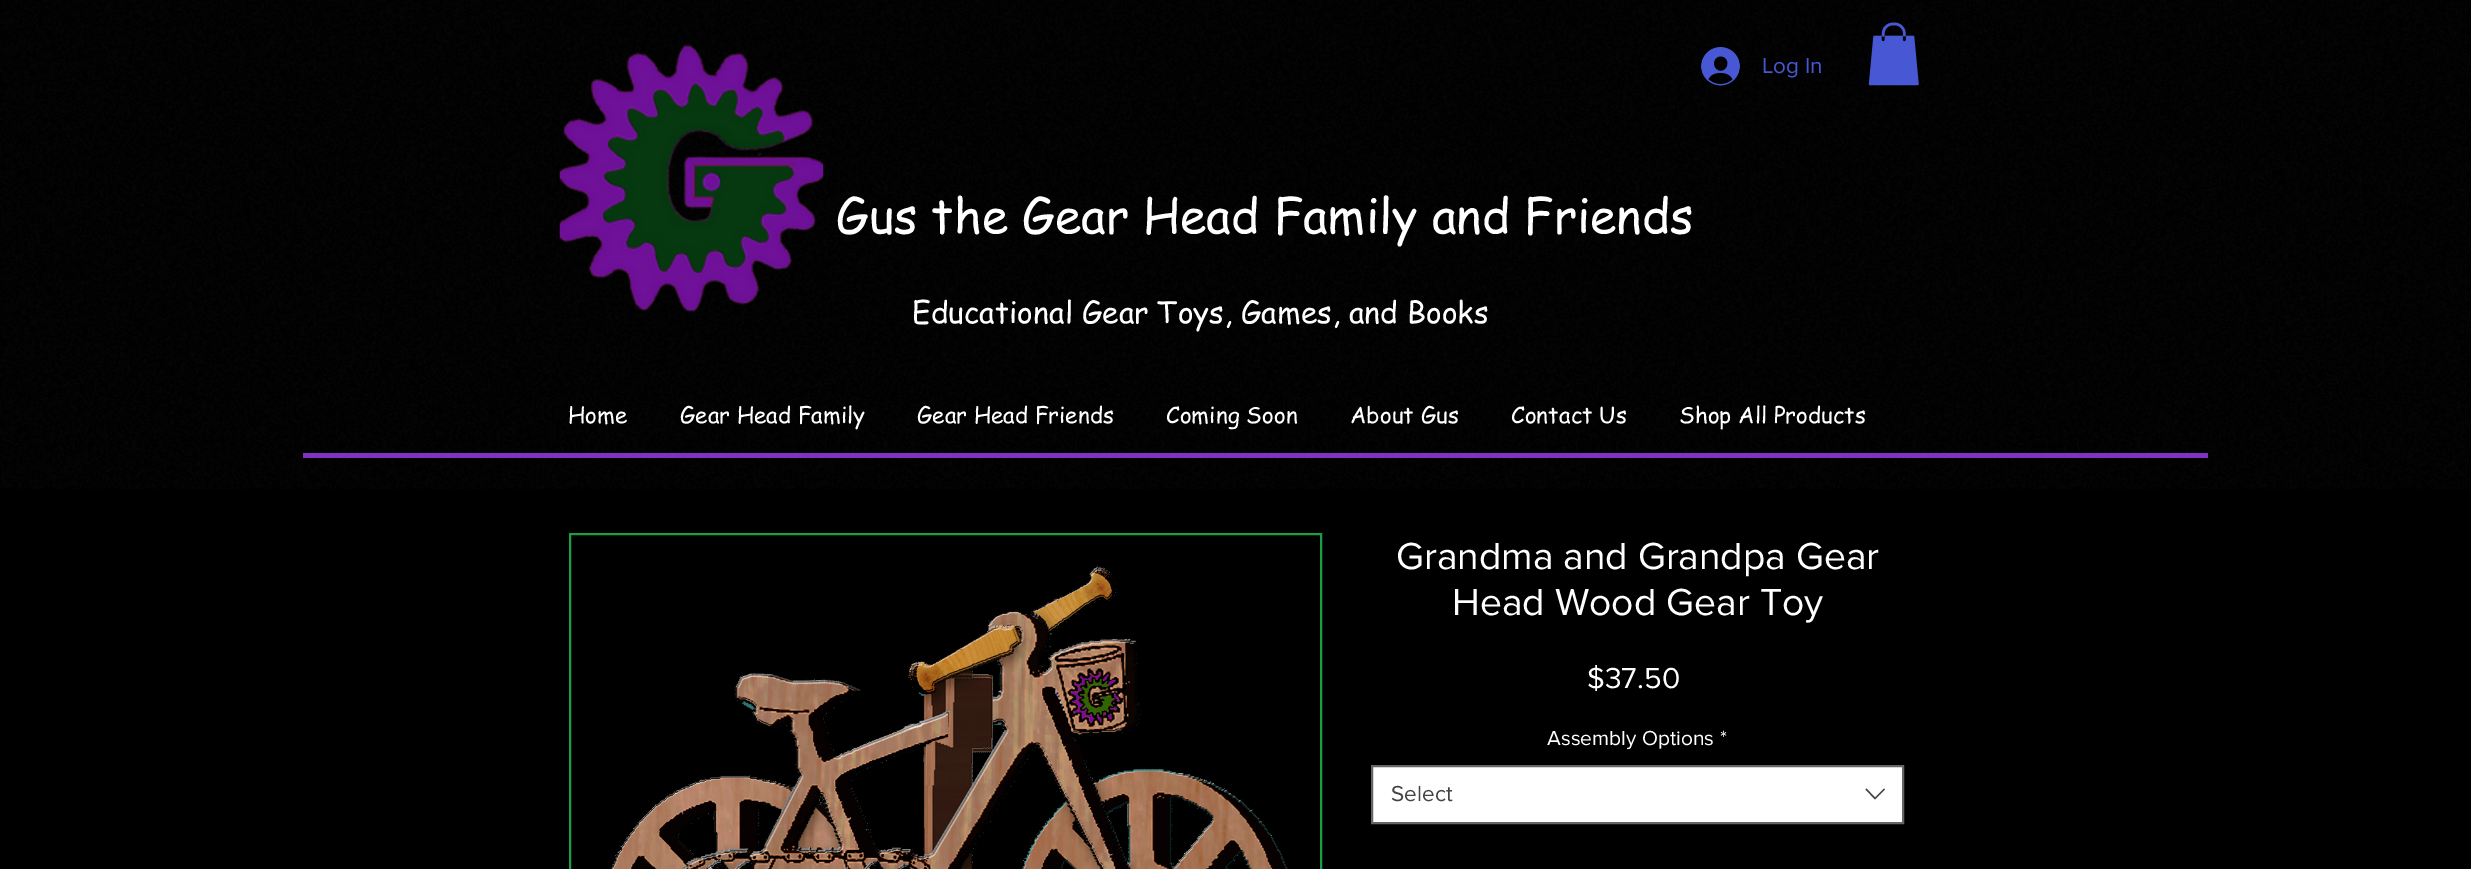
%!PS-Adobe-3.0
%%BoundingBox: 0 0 2471 869
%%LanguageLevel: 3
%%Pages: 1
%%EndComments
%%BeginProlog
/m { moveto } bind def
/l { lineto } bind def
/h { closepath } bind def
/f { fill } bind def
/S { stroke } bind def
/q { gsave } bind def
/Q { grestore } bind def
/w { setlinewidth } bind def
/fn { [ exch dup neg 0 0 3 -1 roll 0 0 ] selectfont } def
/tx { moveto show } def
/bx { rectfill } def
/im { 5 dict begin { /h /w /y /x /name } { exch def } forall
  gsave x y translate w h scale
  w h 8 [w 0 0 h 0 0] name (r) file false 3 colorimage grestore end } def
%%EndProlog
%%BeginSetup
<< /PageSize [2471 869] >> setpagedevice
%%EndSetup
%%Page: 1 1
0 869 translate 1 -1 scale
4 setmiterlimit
0 setgray
0 0 2471 869 bx
(image0.raw) 0 0 2471 489 im
(image1.raw) 559 44 265 269 im
(image2.raw) 1701 47 39 39 im
/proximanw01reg-Regular 22.5 fn
0.282 0.345 0.831 setrgbcolor
(Log In) 1762 73 tx
(image3.raw) 1868 22 51 64 im
/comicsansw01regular-Regular 48 fn
1 setgray
(Gus the Gear Head Family and Friends) 836 233 tx
/comicsansw01regular-Regular 30 fn
(Educational Gear Toys, Games, and Books) 912 323 tx
/comicsansw01regular-Regular 22.5 fn
(Home) 568 423 tx
(Gear Head Family) 680 423 tx
(Gear Head Friends) 917 423 tx
(Coming Soon) 1166 423 tx
(About Gus) 1350 423 tx
(Contact Us) 1511 423 tx
(Shop All Products) 1679 423 tx
0.506 0.192 0.765 setrgbcolor
303 453 1905 5 bx
0.118 0.612 0.255 setrgbcolor
2 w
570 534 751 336 rectstroke
(image4.raw) 610 566 678 303 im
/proximanw01reg-Regular 39 fn
1 setgray
(Grandma and Grandpa Gear) 1396 569 tx
(Head Wood Gear Toy) 1452 615 tx
/proximanw01reg-Regular 30 fn
($37.50) 1587 688 tx
/proximanw01reg-Regular 21 fn
(Assembly Options) 1547 745 tx
(*) 1720 745 tx
1372 766 m 1903 766 l 1903 823 l 1372 823 l h q f Q
0.4 setgray
S
/proximanw01reg-Regular 22.5 fn
0.267 setgray
(Select) 1391 801 tx
1884 788.5 m 1885 789.5 l 1875 799.5 l 1865.5 789.5 l 1866.5 788.5 l 1875 797.5 l h eofill
showpage
%%EOF
